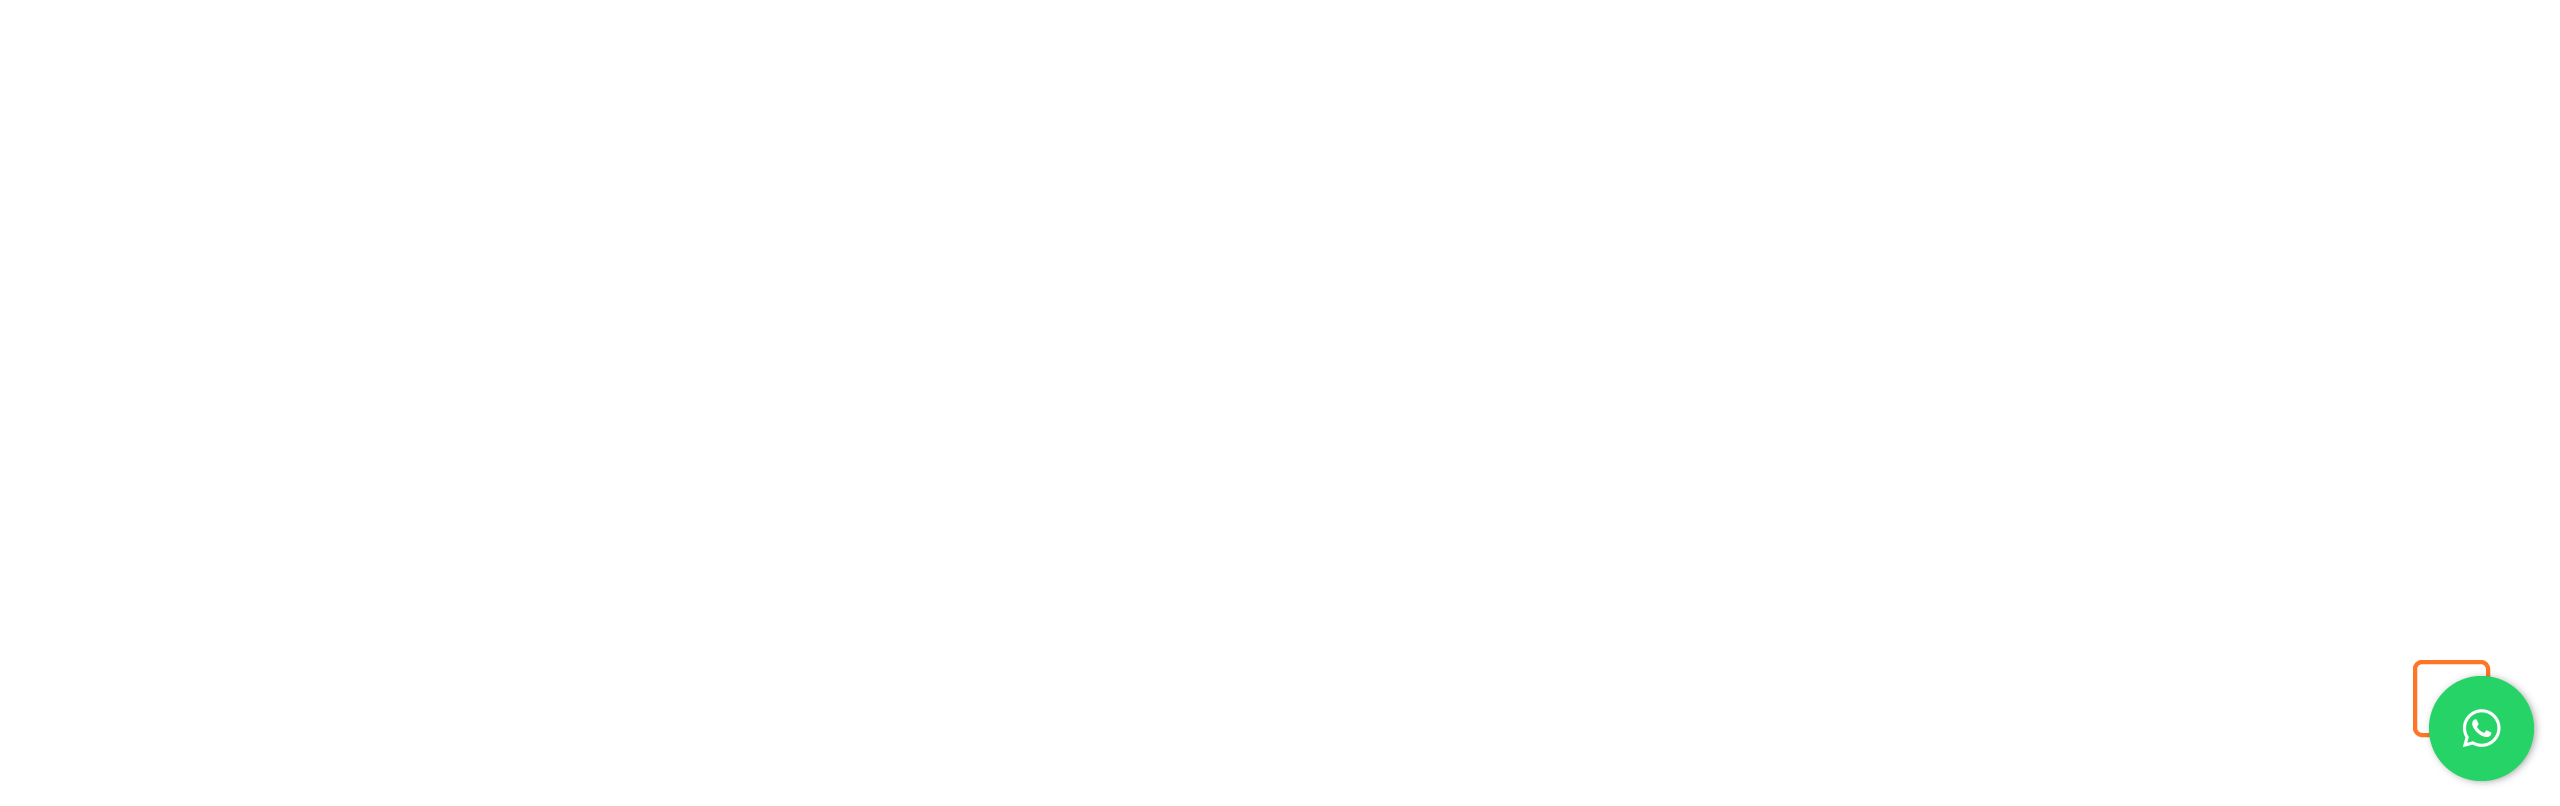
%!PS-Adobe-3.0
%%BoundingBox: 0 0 2560 806
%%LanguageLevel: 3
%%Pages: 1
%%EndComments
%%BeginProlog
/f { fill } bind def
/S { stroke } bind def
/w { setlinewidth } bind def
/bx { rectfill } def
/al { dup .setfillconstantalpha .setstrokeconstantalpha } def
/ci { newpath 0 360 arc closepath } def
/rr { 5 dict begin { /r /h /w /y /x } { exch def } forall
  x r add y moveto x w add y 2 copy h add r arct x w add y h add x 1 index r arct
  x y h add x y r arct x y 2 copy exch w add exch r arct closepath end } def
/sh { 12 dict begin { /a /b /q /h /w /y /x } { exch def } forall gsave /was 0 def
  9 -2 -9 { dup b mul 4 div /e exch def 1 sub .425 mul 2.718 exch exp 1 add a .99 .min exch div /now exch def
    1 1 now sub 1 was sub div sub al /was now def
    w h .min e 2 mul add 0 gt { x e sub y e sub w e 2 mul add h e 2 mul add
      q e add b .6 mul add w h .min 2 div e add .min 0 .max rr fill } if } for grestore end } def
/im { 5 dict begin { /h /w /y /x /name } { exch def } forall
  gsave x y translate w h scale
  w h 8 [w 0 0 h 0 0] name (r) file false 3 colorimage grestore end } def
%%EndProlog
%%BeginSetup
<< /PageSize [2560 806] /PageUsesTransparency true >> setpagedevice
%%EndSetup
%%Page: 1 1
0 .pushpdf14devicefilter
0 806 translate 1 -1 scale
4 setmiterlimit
1 setgray
0 0 2560 806 bx
1 0.455 0.149 setrgbcolor
4 w
2415 662 73 73 7 rr S
0 setgray
2431 677 105 105 52.5 3.5 0.3 sh
0.145 0.827 0.4 setrgbcolor
2481.5 728.5 52.5 ci f
(image0.raw) 2462 709 39 39 im
.poppdf14devicefilter showpage
%%EOF
